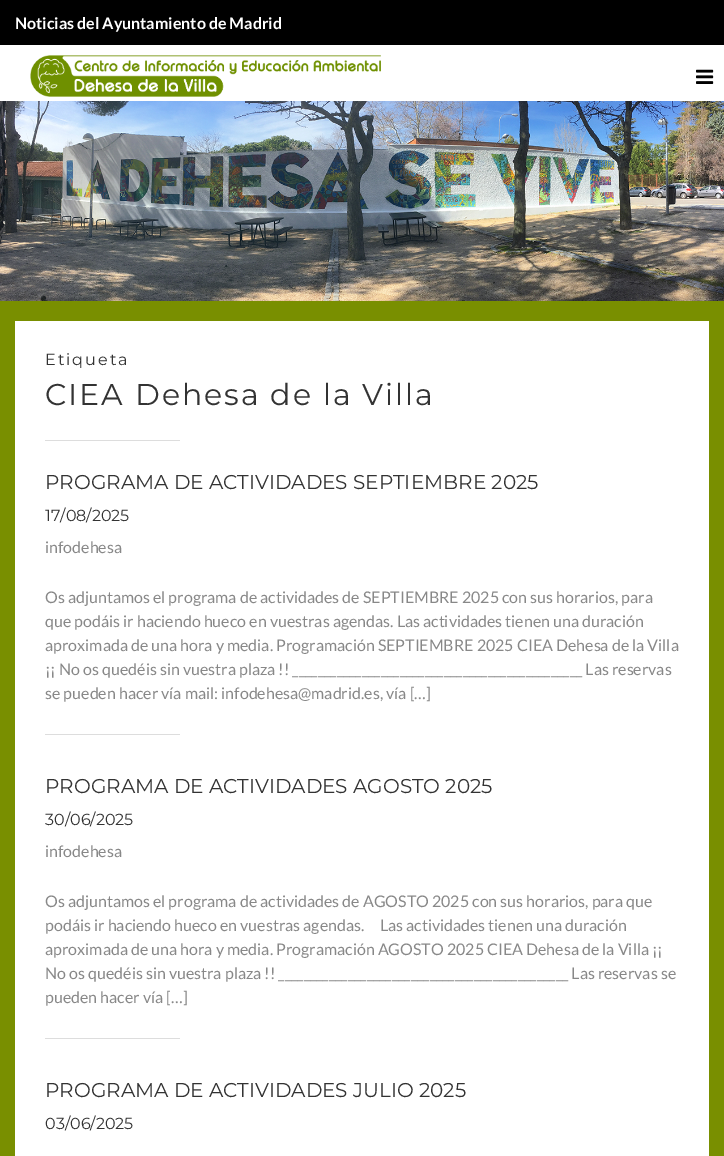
%!PS-Adobe-3.0
%%BoundingBox: 0 0 724 1156
%%LanguageLevel: 3
%%Pages: 1
%%EndComments
%%BeginProlog
/m { moveto } bind def
/fn { [ exch dup neg 0 0 3 -1 roll 0 0 ] selectfont } def
/tx { moveto show } def
/bx { rectfill } def
/im { 5 dict begin { /h /w /y /x /name } { exch def } forall
  gsave x y translate w h scale
  w h 8 [w 0 0 h 0 0] name (r) file false 3 colorimage grestore end } def
%%EndProlog
%%BeginSetup
<< /PageSize [724 1156] >> setpagedevice
%%EndSetup
%%Page: 1 1
0 1156 translate 1 -1 scale
4 setmiterlimit
0.475 0.561 0 setrgbcolor
0 0 724 1156 bx
0 setgray
0 0 724 45 bx
/Lato-Bold 16 fn
1 setgray
(Noticias del Ayuntamiento de Madrid) 15 29 tx
0 45 724 56 bx
(image0.raw) 30 55 351 42 im
(image1.raw) 696 69 18 15 im
(image2.raw) 0 101 724 200 im
15 321 694 835 bx
/Montserrat-Thin 16 fn
0.2 setgray
45 365 m 2 0 (Etiqueta) ashow
/Montserrat-Thin 30 fn
45 405 m 2 0 (CIEA Dehesa de la Villa) ashow
0.867 setgray
45 440 135 1 bx
/Montserrat-Thin 20 fn
0.2 setgray
(PROGRAMA DE ACTIVIDADES SEPTIEMBRE 2025) 45 489 tx
/Montserrat-Thin 16 fn
(17/08/2025) 45 521 tx
/Lato-Regular 16 fn
0.533 setgray
(infodehesa) 45 553 tx
(Os adjuntamos el programa de actividades de SEPTIEMBRE 2025 con sus horarios, para) 45 603 tx
(que podáis ir haciendo hueco en vuestras agendas. Las actividades tienen una duración) 45 627 tx
(aproximada de una hora y media. Programación SEPTIEMBRE 2025 CIEA Dehesa de la Villa) 45 651 tx
(¡¡ No os quedéis sin vuestra plaza !! ______________________________________________ Las reservas) 45 675 tx
(se pueden hacer vía mail: infodehesa@madrid.es, vía […]) 45 699 tx
0.867 setgray
45 734 135 1 bx
/Montserrat-Thin 20 fn
0.2 setgray
(PROGRAMA DE ACTIVIDADES AGOSTO 2025) 45 793 tx
/Montserrat-Thin 16 fn
(30/06/2025) 45 825 tx
/Lato-Regular 16 fn
0.533 setgray
(infodehesa) 45 857 tx
(Os adjuntamos el programa de actividades de AGOSTO 2025 con sus horarios, para que) 45 907 tx
(podáis ir haciendo hueco en vuestras agendas.     Las actividades tienen una duración) 45 931 tx
(aproximada de una hora y media. Programación AGOSTO 2025 CIEA Dehesa de la Villa ¡¡) 45 955 tx
(No os quedéis sin vuestra plaza !! ______________________________________________ Las reservas se) 45 979 tx
(pueden hacer vía […]) 45 1003 tx
0.867 setgray
45 1038 135 1 bx
/Montserrat-Thin 20 fn
0.2 setgray
(PROGRAMA DE ACTIVIDADES JULIO 2025) 45 1097 tx
/Montserrat-Thin 16 fn
(03/06/2025) 45 1129 tx
showpage
%%EOF
